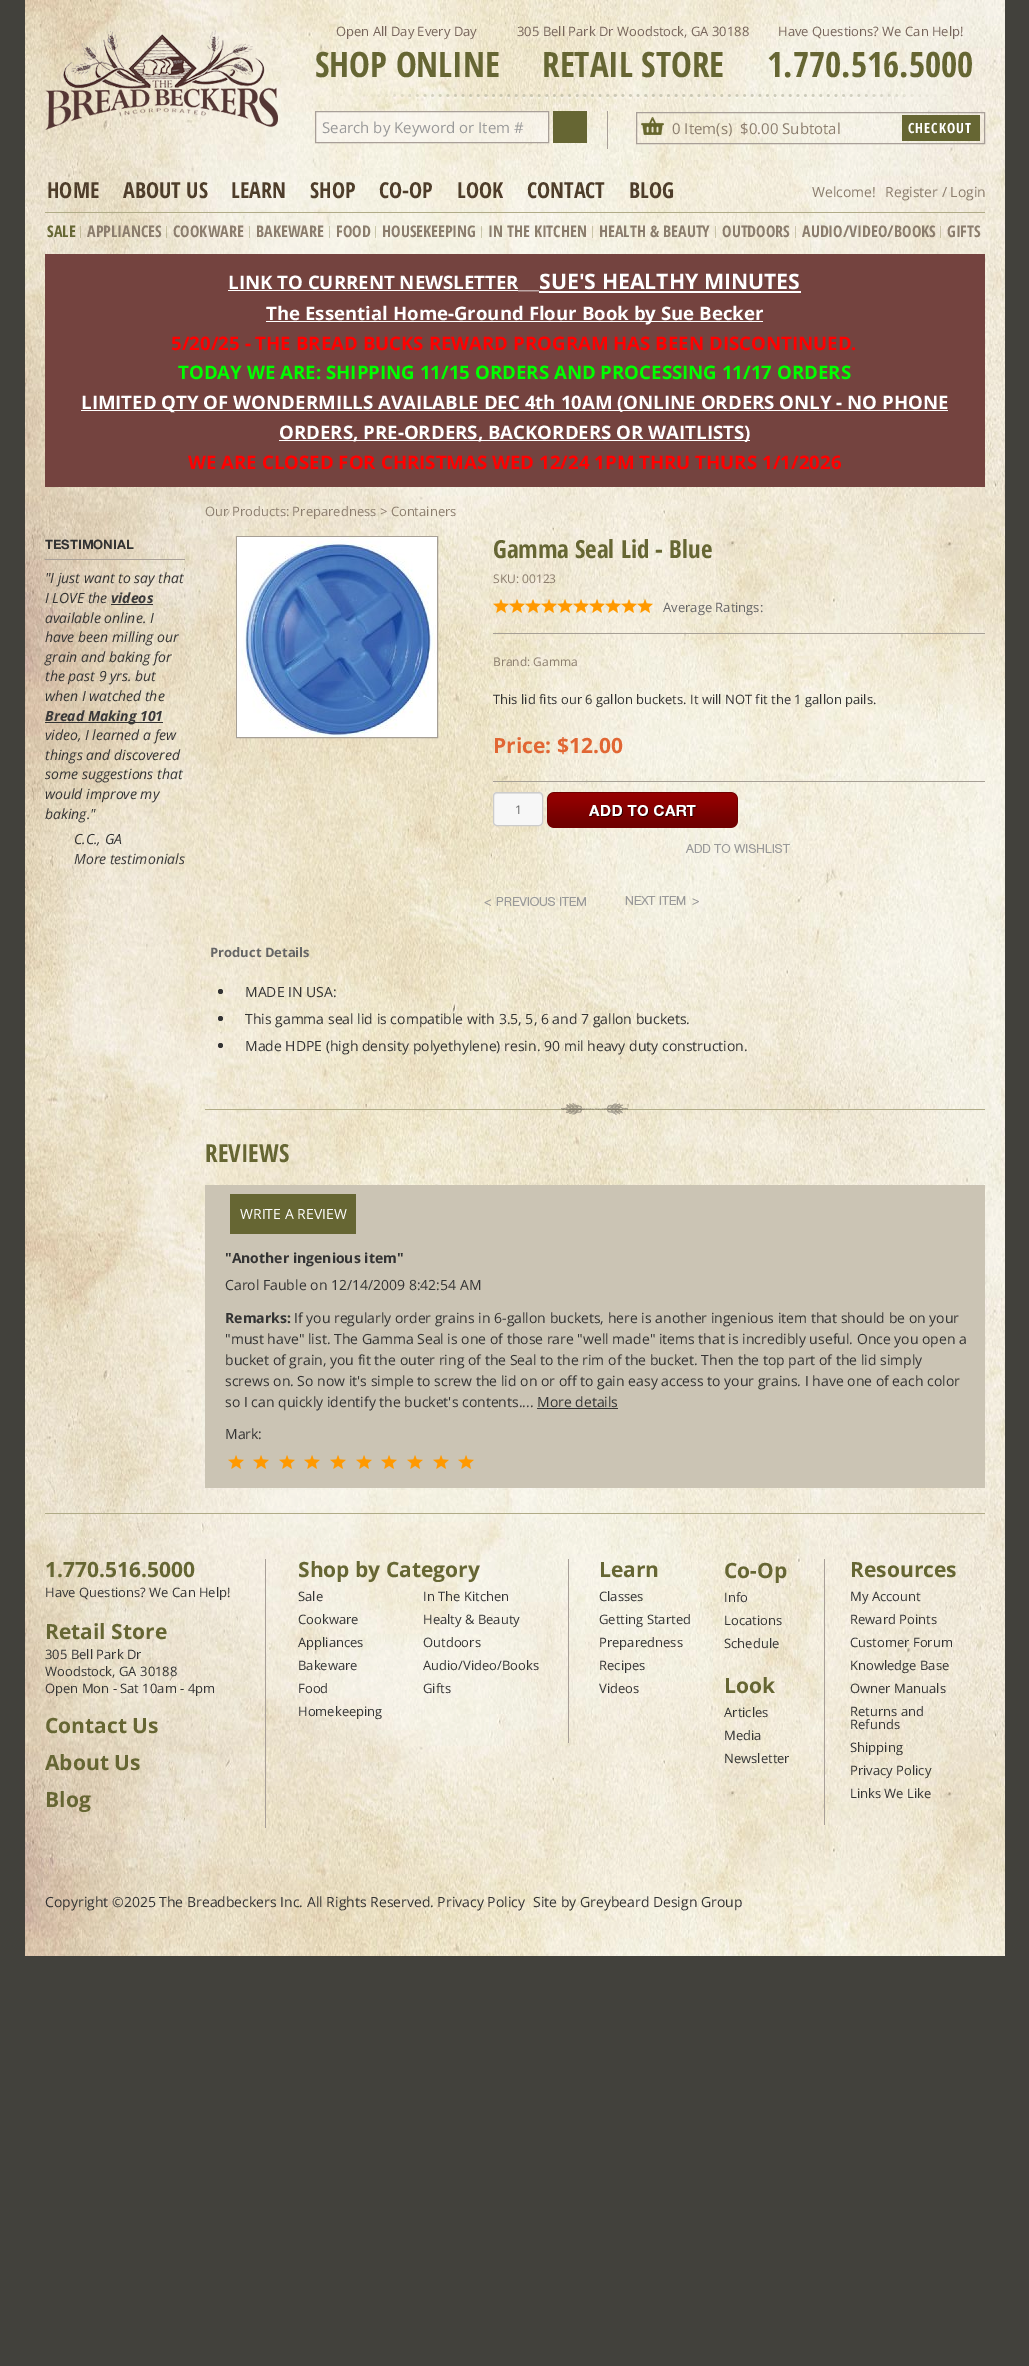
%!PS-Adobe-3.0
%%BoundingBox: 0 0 1029 2366
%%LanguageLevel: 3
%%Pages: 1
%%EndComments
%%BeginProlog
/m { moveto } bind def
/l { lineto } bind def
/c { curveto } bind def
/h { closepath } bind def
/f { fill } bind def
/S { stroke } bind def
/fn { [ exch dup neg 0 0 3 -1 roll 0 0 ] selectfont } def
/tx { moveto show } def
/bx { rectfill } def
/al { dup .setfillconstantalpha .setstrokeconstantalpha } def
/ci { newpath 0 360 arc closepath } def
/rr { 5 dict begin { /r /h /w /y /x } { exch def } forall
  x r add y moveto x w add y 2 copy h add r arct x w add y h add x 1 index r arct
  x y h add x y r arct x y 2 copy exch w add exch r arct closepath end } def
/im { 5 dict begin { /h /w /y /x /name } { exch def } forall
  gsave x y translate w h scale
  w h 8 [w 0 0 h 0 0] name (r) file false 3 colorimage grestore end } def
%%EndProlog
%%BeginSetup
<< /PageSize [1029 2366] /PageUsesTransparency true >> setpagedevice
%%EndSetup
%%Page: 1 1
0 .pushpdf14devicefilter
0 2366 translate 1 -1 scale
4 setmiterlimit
0.259 0.255 0.235 setrgbcolor
0 0 1029 2366 bx
(image0.raw) 25 0 980 1956 im
(image1.raw) 45 30 233 100 im
(image2.raw) 355 94 589 5 im
/OpenSans-Regular 13 fn
0.463 0.392 0.353 setrgbcolor
(Open All Day Every Day) 336 36 tx
/OpenSansCondensed-Bold 35 fn
0.4 0.4 0.2 setrgbcolor
(SHOP ONLINE) 315 77 tx
/OpenSans-Regular 13 fn
0.463 0.392 0.353 setrgbcolor
(305 Bell Park Dr Woodstock, GA 30188) 517 36 tx
/OpenSansCondensed-Bold 35 fn
0.4 0.4 0.2 setrgbcolor
(RETAIL STORE) 542 77 tx
/OpenSans-Regular 13 fn
0.463 0.392 0.353 setrgbcolor
(Have Questions? We Can Help!) 778 36 tx
/OpenSansCondensed-Bold 35 fn
0.4 0.4 0.2 setrgbcolor
(1.770.516.5000) 767 77 tx
0.659 0.624 0.596 setrgbcolor
607 111 1 38 bx
0.6 al
0.984 0.973 0.957 setrgbcolor
315.5 111.5 m 548.5 111.5 l 548.5 142.5 l 315.5 142.5 l h f
1 al
0.659 0.624 0.596 setrgbcolor
315.5 111.5 m 548.5 111.5 l 548.5 142.5 l 315.5 142.5 l h S
/OpenSans-Regular 15 fn
0.6 setgray
(Search by Keyword or Item #) 322 133 tx
0.4 0.4 0.2 setrgbcolor
553 111 34 32 bx
(image3.raw) 641 117 23 18 im
0.659 0.624 0.596 setrgbcolor
636.5 112.5 348 31 rectstroke
0.545 0.49 0.427 setrgbcolor
(0 Item\(s\)) 672 134 tx
($0.00 Subtotal) 740 134 tx
0.4 0.4 0.2 setrgbcolor
902 115 78 26 bx
/OpenSansCondensed-Bold 14 fn
1 setgray
908 133 m 1 0 (CHECKOUT) ashow
/OpenSansCondensed-Bold 22 fn
0.306 0.239 0.165 setrgbcolor
(HOME) 47 198 tx
(ABOUT US) 123 198 tx
(LEARN) 231 198 tx
(SHOP) 310 198 tx
(CO-OP) 379 198 tx
(LOOK) 457 198 tx
(CONTACT) 527 198 tx
(BLOG) 629 198 tx
/OpenSans-Regular 14 fn
0.545 0.49 0.427 setrgbcolor
(Welcome!) 812 197 tx
(Register / Login) 885 197 tx
0.69 0.671 0.529 setrgbcolor
45 212 940 1 bx
/OpenSansCondensed-Bold 16 fn
0.4 0.4 0.2 setrgbcolor
(SALE) 47 237 tx
0.3 al
0.404 0.404 0.169 setrgbcolor
80 226 1 12 bx
1 al
0.545 0.49 0.427 setrgbcolor
(APPLIANCES) 87 237 tx
0.3 al
0.404 0.404 0.169 setrgbcolor
166 226 1 12 bx
1 al
0.545 0.49 0.427 setrgbcolor
(COOKWARE) 173 237 tx
0.3 al
0.404 0.404 0.169 setrgbcolor
249 226 1 12 bx
1 al
0.545 0.49 0.427 setrgbcolor
(BAKEWARE) 256 237 tx
0.3 al
0.404 0.404 0.169 setrgbcolor
329 226 1 12 bx
1 al
0.545 0.49 0.427 setrgbcolor
(FOOD) 336 237 tx
0.3 al
0.404 0.404 0.169 setrgbcolor
375 226 1 12 bx
1 al
0.545 0.49 0.427 setrgbcolor
(HOUSEKEEPING) 382 237 tx
0.3 al
0.404 0.404 0.169 setrgbcolor
481 226 1 12 bx
1 al
0.545 0.49 0.427 setrgbcolor
(IN THE KITCHEN) 488 237 tx
0.3 al
0.404 0.404 0.169 setrgbcolor
592 226 1 12 bx
1 al
0.545 0.49 0.427 setrgbcolor
(HEALTH & BEAUTY) 599 237 tx
0.3 al
0.404 0.404 0.169 setrgbcolor
715 226 1 12 bx
1 al
0.545 0.49 0.427 setrgbcolor
(OUTDOORS) 722 237 tx
0.3 al
0.404 0.404 0.169 setrgbcolor
795 226 1 12 bx
1 al
0.545 0.49 0.427 setrgbcolor
(AUDIO/VIDEO/BOOKS) 802 237 tx
0.3 al
0.404 0.404 0.169 setrgbcolor
940 226 1 12 bx
1 al
0.545 0.49 0.427 setrgbcolor
(GIFTS) 947 237 tx
0.455 0.263 0.247 setrgbcolor
45 254 940 233 bx
/OpenSans-Bold 18.65 fn
1 setgray
(LINK TO CURRENT NEWSLETTER) 228 289 tx
228 290 290 1 bx
/OpenSans-Bold 21.25 fn
(SUE'S HEALTHY MINUTES) 539 289 tx
539 291 262 2 bx
/OpenSans-Light 17 fn
(___) 518 289 tx
266 321 497 1 bx
/OpenSans-Bold 18.65 fn
(The Essential Home-Ground Flour Book by Sue Becker) 266 320 tx
1 0 0 setrgbcolor
(5/20/25 - THE BREAD BUCKS REWARD PROGRAM HAS BEEN DISCONTINUED.) 171 350 tx
0 1 0 setrgbcolor
(TODAY WE ARE: SHIPPING 11/15 ORDERS AND PROCESSING 11/17 ORDERS) 178 379 tx
1 setgray
81 410 867 1 bx
(LIMITED QTY OF WONDERMILLS AVAILABLE DEC 4th 10AM \(ONLINE ORDERS ONLY - NO PHONE) 81 409 tx
279 440 471 1 bx
(ORDERS, PRE-ORDERS, BACKORDERS OR WAITLISTS\)) 279 439 tx
1 0 0 setrgbcolor
(WE ARE CLOSED FOR CHRISTMAS WED 12/24 1PM THRU THURS 1/1/2026) 188 469 tx
0.659 0.624 0.596 setrgbcolor
45 559 140 1 bx
/HelveticaNeue-Bold 13 fn
0.2 setgray
(TESTIMONIAL) 45 549 tx
/OpenSans-Italic 14 fn
("I just want to say that) 45 583 tx
(I LOVE the) 45 603 tx
/OpenSans-BoldItalic 14 fn
0.227 0.224 0.224 setrgbcolor
(videos) 111 603 tx
0.2 setgray
111 604 42 1 bx
/OpenSans-Italic 14 fn
(available online. I) 45 623 tx
(have been milling our) 45 642 tx
(grain and baking for) 45 662 tx
(the past 9 yrs. but) 45 681 tx
(when I watched the) 45 701 tx
45 722 118 1 bx
/OpenSans-BoldItalic 14 fn
0.227 0.224 0.224 setrgbcolor
(Bread Making 101) 45 721 tx
/OpenSans-Italic 14 fn
0.2 setgray
(video, I learned a few) 45 740 tx
(things and discovered) 45 760 tx
(some suggestions that) 45 779 tx
(would improve my) 45 799 tx
(baking.") 45 819 tx
(C.C., GA) 74 844 tx
0.227 0.224 0.224 setrgbcolor
(More testimonials) 74 864 tx
/OpenSans-Regular 13 fn
0.545 0.49 0.427 setrgbcolor
(Our Products: Preparedness > Containers) 205 516 tx
0.651 0.624 0.584 setrgbcolor
236.5 536.5 201 201 rectstroke
(image4.raw) 237 537 200 200 im
/OpenSansCondensed-Bold 25 fn
0.4 0.4 0.2 setrgbcolor
(Gamma Seal Lid - Blue) 493 558 tx
/OpenSans-Regular 12 fn
0.545 0.49 0.427 setrgbcolor
(SKU: 00123) 493 583 tx
0.651 0.624 0.584 setrgbcolor
493 633 492 1 bx
(image5.raw) 493 599 16 14 im
(image6.raw) 509 599 16 14 im
(image7.raw) 525 599 16 14 im
(image8.raw) 541 599 16 14 im
(image9.raw) 557 599 16 14 im
(image10.raw) 573 599 16 14 im
(image11.raw) 589 599 16 14 im
(image12.raw) 605 599 16 14 im
(image13.raw) 621 599 16 14 im
(image14.raw) 637 599 16 14 im
/OpenSans-Regular 13 fn
0.4 setgray
(Average Ratings:) 663 612 tx
/OpenSans-Regular 12 fn
0.545 0.49 0.427 setrgbcolor
(Brand: Gamma) 493 666 tx
/OpenSans-Regular 13 fn
0.2 setgray
(This lid fits our 6 gallon buckets. It will NOT fit the 1 gallon pails.) 493 704 tx
0.651 0.624 0.584 setrgbcolor
493 781 492 1 bx
/OpenSans-Bold 21 fn
0.882 0.4 0.2 setrgbcolor
(Price: $12.00) 493 753 tx
0.969 setgray
493 792 50 34 4 rr f
0.894 setgray
497 794 m 539 794 l 541 794 542 795 542 797 c 542 791 536 793 532 793 c 504 793 l 500 793 494 791 494 797 c 494 795 495 794 497 794 c h f
0.8 setgray
493.5 792.5 49 33 3.5 rr S
/OpenSans-Regular 12 fn
0.4 setgray
(1) 515 814 tx
(image15.raw) 547 792 191 36 im
(image16.raw) 685 844 105 9 im
(image17.raw) 484 897 102 9 im
(image18.raw) 625 896 74 9 im
/OpenSans-Bold 13 fn
(Product Details) 210 957 tx
0.2 setgray
220.5 991.5 2.5 ci f
/OpenSans-Regular 14 fn
(MADE IN USA:) 245 997 tx
220.5 1018.5 2.5 ci f
(This gamma seal lid is compatible with 3.5, 5, 6 and 7 gallon buckets.) 245 1024 tx
220.5 1045.5 2.5 ci f
(Made HDPE \(high density polyethylene\) resin. 90 mil heavy duty construction.) 245 1051 tx
0.69 0.671 0.529 setrgbcolor
205 1109 780 1 bx
(image19.raw) 561 1103 67 12 im
/OpenSansCondensed-Bold 25 fn
0.4 0.4 0.2 setrgbcolor
(REVIEWS) 205 1162 tx
0.796 0.769 0.706 setrgbcolor
205 1185 780 303 bx
0.4 0.4 0.2 setrgbcolor
230 1194 126 40 bx
/OpenSans-Regular 14 fn
1 setgray
(WRITE A REVIEW) 240 1219 tx
/OpenSans-Bold 14 fn
0.2 setgray
("Another ingenious item") 225 1263 tx
/OpenSans-Regular 14 fn
(Carol Fauble on 12/14/2009 8:42:54 AM) 225 1290 tx
/OpenSans-Bold 14 fn
(Remarks:) 225 1323 tx
/OpenSans-Regular 14 fn
(If you regularly order grains in 6-gallon buckets, here is another ingenious item that should be on your) 294 1323 tx
("must have" list. The Gamma Seal is one of those rare "well made" items that is incredibly useful. Once you open a) 225 1344 tx
(bucket of grain, you fit the outer ring of the Seal to the rim of the bucket. Then the top part of the lid simply) 225 1365 tx
(screws on. So now it's simple to screw the lid on or off to gain easy access to your grains. I have one of each color) 225 1386 tx
(so I can quickly identify the bucket's contents.... More details) 225 1407 tx
537 1408 81 1 bx
(Mark:) 225 1439 tx
(image20.raw) 228 1455 16 14 im
(image20.raw) 253 1455 16 14 im
(image20.raw) 279 1455 16 14 im
(image20.raw) 304 1455 16 14 im
(image20.raw) 330 1455 16 14 im
(image20.raw) 356 1455 16 14 im
(image20.raw) 381 1455 16 14 im
(image20.raw) 407 1455 16 14 im
(image20.raw) 433 1455 16 14 im
(image20.raw) 458 1455 16 14 im
0.69 0.671 0.529 setrgbcolor
45 1513 940 1 bx
0.659 0.624 0.596 setrgbcolor
265 1559 1 269 bx
/OpenSans-Bold 21 fn
0.4 0.4 0.2 setrgbcolor
(1.770.516.5000) 45 1577 tx
/OpenSans-Regular 13 fn
0.2 setgray
(Have Questions? We Can Help!) 45 1597 tx
/OpenSans-Bold 21 fn
0.4 0.4 0.2 setrgbcolor
(Retail Store) 45 1639 tx
/OpenSans-Regular 13 fn
0.2 setgray
(305 Bell Park Dr) 45 1659 tx
(Woodstock, GA 30188) 45 1676 tx
(Open Mon - Sat 10am - 4pm) 45 1693 tx
/OpenSans-Bold 21 fn
0.4 0.4 0.2 setrgbcolor
(Contact Us) 45 1733 tx
(About Us) 45 1770 tx
(Blog) 45 1807 tx
0.659 0.624 0.596 setrgbcolor
568 1559 1 184 bx
0.4 0.4 0.2 setrgbcolor
(Shop by Category) 298 1577 tx
/OpenSans-Regular 13 fn
0.2 setgray
(Sale) 298 1601 tx
(Cookware) 298 1624 tx
(Appliances) 298 1647 tx
(Bakeware) 298 1670 tx
(Food) 298 1693 tx
(Homekeeping) 298 1716 tx
(In The Kitchen) 423 1601 tx
(Healty & Beauty) 423 1624 tx
(Outdoors) 423 1647 tx
(Audio/Video/Books) 423 1670 tx
(Gifts) 423 1693 tx
0.659 0.624 0.596 setrgbcolor
824 1559 1 266 bx
/OpenSans-Bold 21 fn
0.4 0.4 0.2 setrgbcolor
(Learn) 599 1577 tx
(Co-Op) 724 1578 tx
/OpenSans-Regular 13 fn
0.2 setgray
(Info) 724 1602 tx
(Locations) 724 1625 tx
(Schedule) 724 1648 tx
/OpenSans-Bold 21 fn
0.4 0.4 0.2 setrgbcolor
(Look) 724 1693 tx
/OpenSans-Regular 13 fn
0.2 setgray
(Articles) 724 1717 tx
(Media) 724 1740 tx
(Newsletter) 724 1763 tx
(Classes) 599 1601 tx
(Getting Started) 599 1624 tx
(Preparedness) 599 1647 tx
(Recipes) 599 1670 tx
(Videos) 599 1693 tx
/OpenSans-Bold 21 fn
0.4 0.4 0.2 setrgbcolor
(Resources) 850 1577 tx
/OpenSans-Regular 13 fn
0.2 setgray
(My Account) 850 1601 tx
(Reward Points) 850 1624 tx
(Customer Forum) 850 1647 tx
(Knowledge Base) 850 1670 tx
(Owner Manuals) 850 1693 tx
(Returns and) 850 1716 tx
(Refunds) 850 1729 tx
(Shipping) 850 1752 tx
(Privacy Policy) 850 1775 tx
(Links We Like) 850 1798 tx
/OpenSans-Regular 14 fn
(Copyright ©2025 The Breadbeckers Inc. All Rights Reserved. Privacy Policy) 45 1907 tx
(Site by Greybeard Design Group) 533 1907 tx
.poppdf14devicefilter showpage
%%EOF
